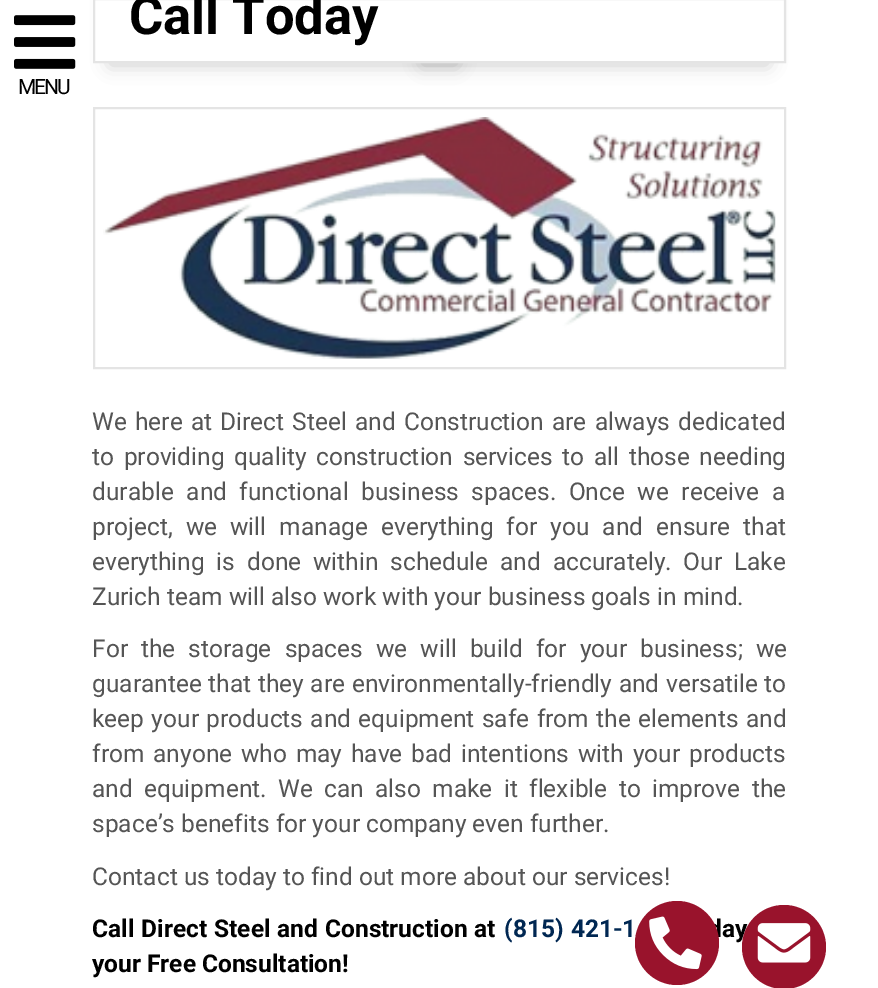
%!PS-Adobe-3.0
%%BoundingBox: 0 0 878 988
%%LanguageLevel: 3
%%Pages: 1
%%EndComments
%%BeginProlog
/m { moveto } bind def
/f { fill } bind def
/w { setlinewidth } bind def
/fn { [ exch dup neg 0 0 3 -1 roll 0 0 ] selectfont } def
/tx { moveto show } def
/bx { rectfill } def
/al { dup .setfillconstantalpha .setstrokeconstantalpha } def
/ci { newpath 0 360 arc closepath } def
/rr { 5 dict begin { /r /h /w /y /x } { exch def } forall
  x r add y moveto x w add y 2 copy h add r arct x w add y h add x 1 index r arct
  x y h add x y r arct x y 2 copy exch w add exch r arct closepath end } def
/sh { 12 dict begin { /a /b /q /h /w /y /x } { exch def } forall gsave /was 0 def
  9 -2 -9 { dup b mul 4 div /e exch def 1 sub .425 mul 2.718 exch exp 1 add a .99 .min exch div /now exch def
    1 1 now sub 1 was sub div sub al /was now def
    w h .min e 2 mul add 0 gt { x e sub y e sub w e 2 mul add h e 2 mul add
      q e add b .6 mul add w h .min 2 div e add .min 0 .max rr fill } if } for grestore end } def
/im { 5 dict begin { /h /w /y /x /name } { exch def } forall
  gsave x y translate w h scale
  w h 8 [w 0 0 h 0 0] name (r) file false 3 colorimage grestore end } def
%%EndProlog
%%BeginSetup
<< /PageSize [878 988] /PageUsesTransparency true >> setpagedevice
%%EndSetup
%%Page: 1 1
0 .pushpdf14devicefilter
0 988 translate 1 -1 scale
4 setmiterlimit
1 setgray
0 0 878 988 bx
(image0.raw) 14 15 62 54 im
/Roboto-Regular 21 fn
0 setgray
18 94 m -2 0 (MENU) ashow
110 -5 347 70 0 9 0.2 sh
422 -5 346 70 0 9 0.2 sh
1 setgray
95 0 688 61 bx
0.894 setgray
2 w
94 -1 691 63 rectstroke
/Roboto-Bold 52.5 fn
0 setgray
(Call Today) 129 34 tx
0.894 setgray
94 108 691 260 rectstroke
(image1.raw) 103 117 673 242 im
/Roboto-Regular 24.5 fn
0.333 setgray
92 430 m 2 0 32 (We here at Direct Steel and Construction are always dedicated) widthshow
92 465 m 3.5 0 32 (to providing quality construction services to all those needing) widthshow
92 500 m 6.5 0 32 (durable and functional business spaces. Once we receive a) widthshow
92 535 m 7 0 32 (project, we will manage everything for you and ensure that) widthshow
92 570 m 5.75 0 32 (everything is done within schedule and accurately. Our Lake) widthshow
(Zurich team will also work with your business goals in mind.) 92 605 tx
92 657 m 7 0 32 (For the storage spaces we will build for your business; we) widthshow
92 692 m 0.5 0 32 (guarantee that they are environmentally-friendly and versatile to) widthshow
92 727 m 1.25 0 32 (keep your products and equipment safe from the elements and) widthshow
92 762 m 2.75 0 32 (from anyone who may have bad intentions with your products) widthshow
92 797 m 5.25 0 32 (and equipment. We can also make it flexible to improve the) widthshow
(space’s benefits for your company even further.) 92 832 tx
(Contact us today to find out more about our services!) 92 885 tx
/Roboto-Bold 24.5 fn
0 setgray
92 937 m 1 0 32 (Call Direct Steel and Construction at) widthshow
0 0.153 0.322 setrgbcolor
504 937 m 1.25 0 32 (\(815\) 421-1) widthshow
0 setgray
708 937 m 1 0 32 (day) widthshow
(your Free Consultation!) 92 972 tx
0.6 0.075 0.173 setrgbcolor
677 943 42 ci f
(image2.raw) 649 916 53 54 im
784 947 42 ci f
(image3.raw) 757 923 54 40 im
.poppdf14devicefilter showpage
%%EOF
